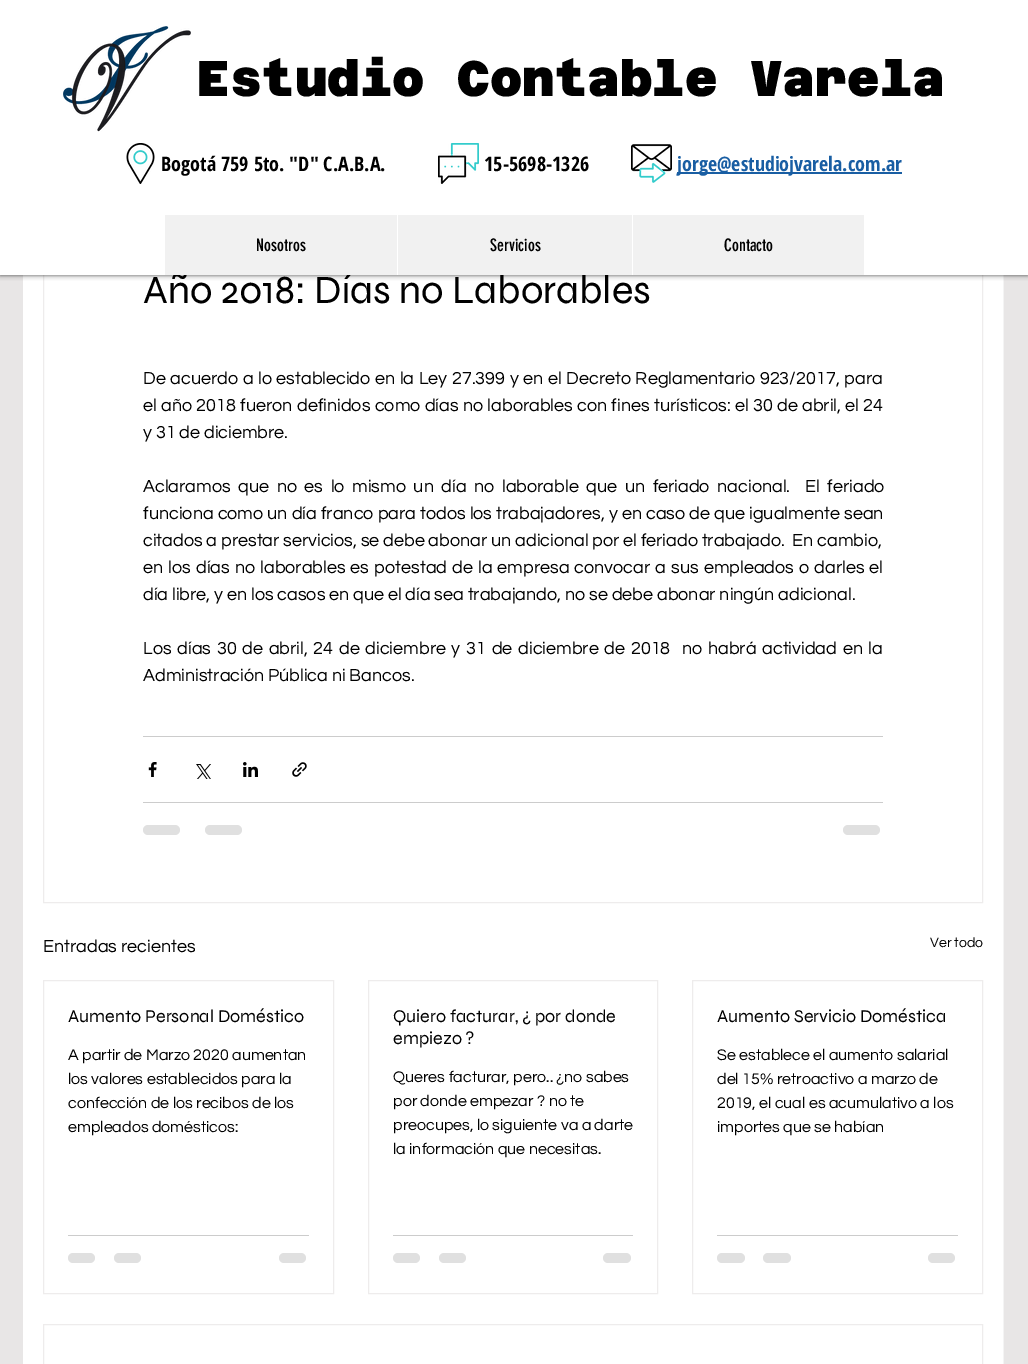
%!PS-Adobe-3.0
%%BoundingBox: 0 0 1028 1364
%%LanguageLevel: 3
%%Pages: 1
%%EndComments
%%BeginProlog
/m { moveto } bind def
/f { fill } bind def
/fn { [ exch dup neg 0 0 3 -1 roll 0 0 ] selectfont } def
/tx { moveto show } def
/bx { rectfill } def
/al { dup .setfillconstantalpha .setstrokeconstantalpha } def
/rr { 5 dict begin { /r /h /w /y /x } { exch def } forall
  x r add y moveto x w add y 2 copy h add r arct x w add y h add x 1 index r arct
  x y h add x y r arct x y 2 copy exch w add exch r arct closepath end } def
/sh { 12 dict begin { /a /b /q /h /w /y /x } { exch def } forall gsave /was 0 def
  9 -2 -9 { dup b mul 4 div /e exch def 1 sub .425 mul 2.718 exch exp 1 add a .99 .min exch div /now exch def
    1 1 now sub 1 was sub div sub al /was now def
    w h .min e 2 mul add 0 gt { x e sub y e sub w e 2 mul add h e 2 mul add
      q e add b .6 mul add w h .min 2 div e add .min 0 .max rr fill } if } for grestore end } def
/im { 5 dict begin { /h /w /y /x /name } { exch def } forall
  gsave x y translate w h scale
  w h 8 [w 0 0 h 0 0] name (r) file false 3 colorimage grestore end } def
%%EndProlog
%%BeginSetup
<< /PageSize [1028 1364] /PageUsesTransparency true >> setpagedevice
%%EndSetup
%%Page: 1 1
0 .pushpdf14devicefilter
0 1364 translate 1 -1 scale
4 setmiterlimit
0.91 0.902 0.902 setrgbcolor
0 0 1028 1364 bx
1 setgray
23 275 980 1089 bx
0.933 0.925 0.925 setrgbcolor
43.5 151.5 939 751 rectstroke
0.957 setgray
1003 275 1 1089 bx
0 setgray
0 0 1028 275 0 2.5 0.7 sh
/Syne-Regular 40 fn
(Año 2018: Días no Laborables) 143 303 tx
1 setgray
0 0 1028 275 bx
(image0.raw) 63 26 128 106 im
/AzeretMono-Black 50 fn
0 setgray
(Estudio Contable Varela) 197 96 tx
(image1.raw) 126 143 29 41 im
/OpenSansCondensed-Bold 20 fn
(Bogotá 759 5to. "D" C.A.B.A.) 161 171 tx
(image2.raw) 438 143 41 41 im
(15-5698-1326) 484 171 tx
(image3.raw) 631 144 41 39 im
0.098 0.369 0.639 setrgbcolor
677 172 225 2 bx
(jorge@estudiojvarela.com.ar) 677 171 tx
0.945 setgray
165 215 699 60 bx
/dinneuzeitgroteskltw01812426-Regular 17 fn
0 setgray
(Nosotros) 256 251 tx
1 setgray
397 215 1 60 bx
0 setgray
(Servicios) 490 251 tx
1 setgray
632 215 1 60 bx
0 setgray
(Contacto) 724 251 tx
/Questrial-Regular 18 fn
143 384 m 0.75 0 32 (De acuerdo a lo establecido en la Ley 27.399 y en el Decreto Reglamentario 923/2017, para) widthshow
143 411 m 0.5 0 32 (el año 2018 fueron definidos como días no laborables con fines turísticos: el 30 de abril, el 24) widthshow
(y 31 de diciembre.) 143 438 tx
143 492 m 3.75 0 32 (Aclaramos que no es lo mismo un día no laborable que un feriado nacional.  El feriado) widthshow
143 519 m 0.25 0 32 (funciona como un día franco para todos los trabajadores, y en caso de que igualmente sean) widthshow
(citados a prestar servicios, se debe abonar un adicional por el feriado trabajado.  En cambio,) 143 546 tx
143 573 m 1.25 0 32 (en los días no laborables es potestad de la empresa convocar a sus empleados o darles el) widthshow
(día libre, y en los casos en que el día sea trabajando, no se debe abonar ningún adicional.) 143 600 tx
143 654 m 1.9 0 32 (Los días 30 de abril, 24 de diciembre y 31 de diciembre de 2018  no habrá actividad en la) widthshow
(Administración Pública ni Bancos.) 143 681 tx
0.8 setgray
143 736 740 1 bx
(image4.raw) 148 762 9 15 im
(image5.raw) 196 764 15 15 im
(image6.raw) 243 762 15 15 im
(image7.raw) 292 762 15 15 im
143 802 740 1 bx
0.878 setgray
143 825 37 10 5 rr f
205 825 37 10 5 rr f
843 825 37 10 5 rr f
0 setgray
(Entradas recientes) 43 952 tx
/Questrial-Regular 14 fn
(Ver todo) 930 947 tx
0.933 0.925 0.925 setrgbcolor
43.5 980.5 290 313 rectstroke
/Syne-Regular 18 fn
0 setgray
(Aumento Personal Doméstico) 68 1022 tx
/Questrial-Regular 16 fn
(A partir de Marzo 2020 aumentan) 68 1060 tx
(los valores establecidos para la) 68 1084 tx
(confección de los recibos de los) 68 1108 tx
(empleados domésticos:) 68 1132 tx
0.8 setgray
68 1235 241 1 bx
0.878 setgray
68 1253 27 10 5 rr f
114 1253 27 10 5 rr f
279 1253 27 10 5 rr f
0.933 0.925 0.925 setrgbcolor
368.5 980.5 289 313 rectstroke
/Syne-Regular 18 fn
0 setgray
(Quiero facturar, ¿ por donde) 393 1022 tx
(empiezo ?) 393 1044 tx
/Questrial-Regular 16 fn
(Queres facturar, pero.. ¿no sabes) 393 1082 tx
(por donde empezar ? no te) 393 1106 tx
(preocupes, lo siguiente va a darte) 393 1130 tx
(la información que necesitas.) 393 1154 tx
0.8 setgray
393 1235 240 1 bx
0.878 setgray
393 1253 27 10 5 rr f
439 1253 27 10 5 rr f
603 1253 28 10 5 rr f
0.933 0.925 0.925 setrgbcolor
692.5 980.5 290 313 rectstroke
/Syne-Regular 18 fn
0 setgray
(Aumento Servicio Doméstica) 717 1022 tx
/Questrial-Regular 16 fn
(Se establece el aumento salarial) 717 1060 tx
(del 15% retroactivo a marzo de) 717 1084 tx
(2019, el cual es acumulativo a los) 717 1108 tx
(importes que se habían) 717 1132 tx
0.8 setgray
717 1235 241 1 bx
0.878 setgray
717 1253 28 10 5 rr f
763 1253 28 10 5 rr f
928 1253 27 10 5 rr f
0.933 0.925 0.925 setrgbcolor
43.5 1324.5 939 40 rectstroke
.poppdf14devicefilter showpage
%%EOF
